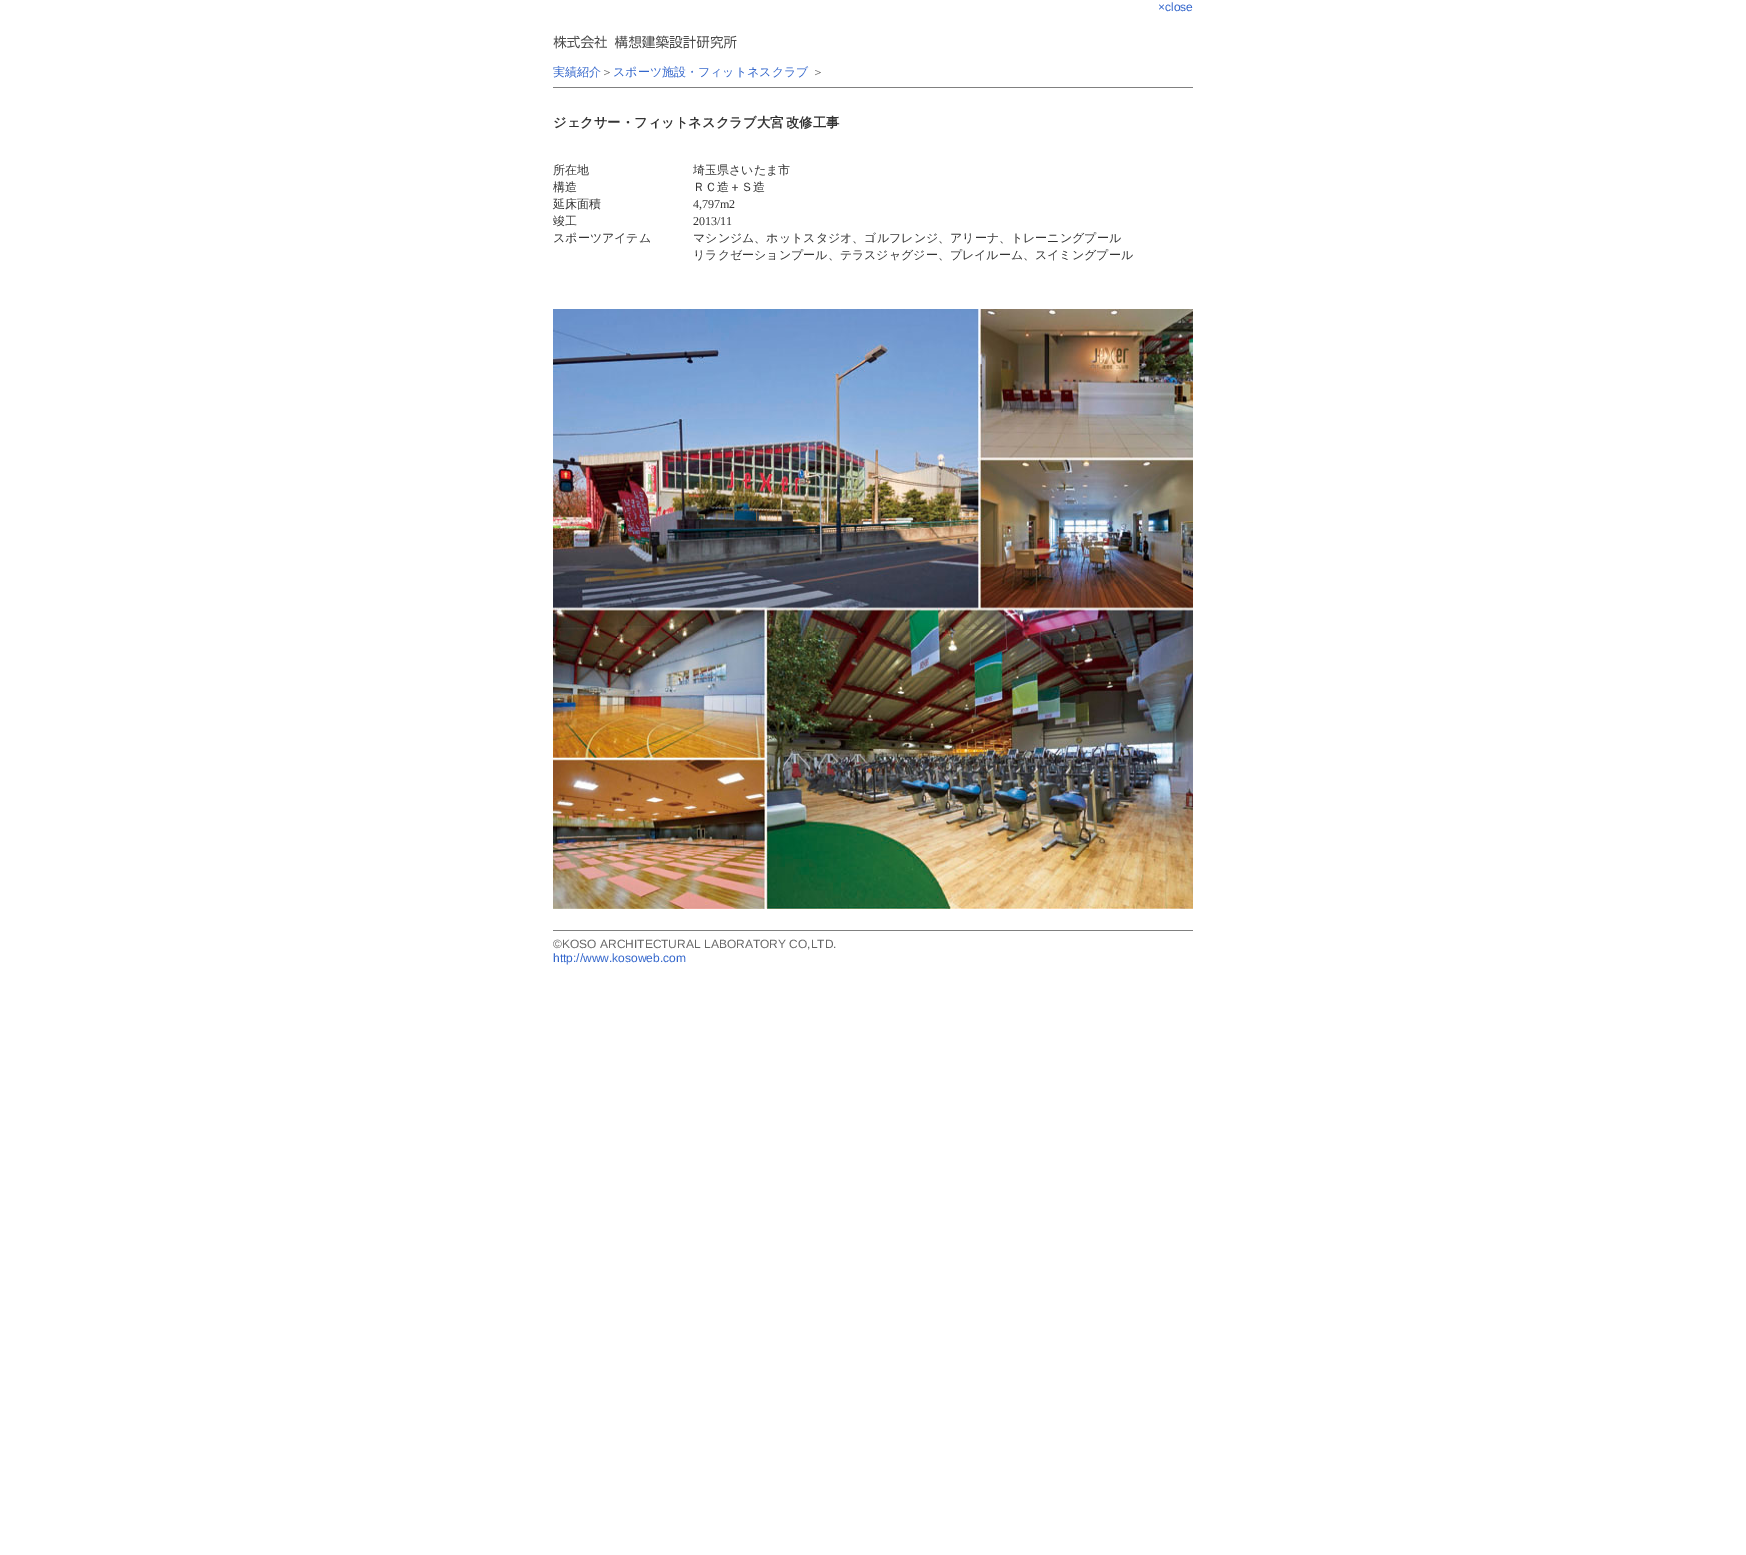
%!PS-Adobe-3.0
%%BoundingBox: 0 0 1746 1555
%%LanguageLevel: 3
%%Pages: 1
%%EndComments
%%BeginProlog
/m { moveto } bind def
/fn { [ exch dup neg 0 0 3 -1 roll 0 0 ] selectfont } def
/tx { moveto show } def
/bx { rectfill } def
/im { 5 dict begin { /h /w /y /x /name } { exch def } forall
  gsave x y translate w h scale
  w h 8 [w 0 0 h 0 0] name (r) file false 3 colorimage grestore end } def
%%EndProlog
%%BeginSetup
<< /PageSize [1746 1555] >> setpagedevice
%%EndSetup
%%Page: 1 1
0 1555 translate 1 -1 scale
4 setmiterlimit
1 setgray
0 0 1746 1555 bx
/LiberationSans-Regular 12 fn
0.2 0.4 0.8 setrgbcolor
(×close) 1158 11 tx
(image0.raw) 553 35 184 14 im
/WenQuanYiZenHei-Medium 12 fn
(実績紹介) 553 76 tx
0.4 setgray
(＞) 601 76 tx
0.2 0.4 0.8 setrgbcolor
(スポーツ施設・フィットネスクラブ) 613 76 tx
0.4 setgray
(＞) 812 76 tx
0.502 setgray
553 87 640 1 bx
/WenQuanYiZenHei-Bold 13.3 fn
0.2 setgray
553 127 m -1 0 32 (ジェクサー・フィットネスクラブ大宮 改修工事) widthshow
/WenQuanYiZenHei-Medium 12 fn
(所在地) 553 174 tx
(埼玉県さいたま市) 693 174 tx
(構造) 553 191 tx
(ＲＣ造＋Ｓ造) 693 191 tx
(延床面積) 553 208 tx
/LiberationSerif-Regular 12 fn
(4,797m2) 693 208 tx
/WenQuanYiZenHei-Medium 12 fn
(竣工) 553 225 tx
/LiberationSerif-Regular 12 fn
(2013/11) 693 225 tx
/WenQuanYiZenHei-Medium 12 fn
(スポーツアイテム) 553 242 tx
(マシンジム、ホットスタジオ、ゴルフレンジ、アリーナ、トレーニングプール) 693 242 tx
(リラクゼーションプール、テラスジャグジー、プレイルーム、スイミングプール) 693 259 tx
(image1.raw) 553 309 640 600 im
0.502 setgray
553 930 640 1 bx
/LiberationSans-Regular 12 fn
0.4 setgray
(©KOSO ARCHITECTURAL LABORATORY CO,LTD.) 553 948 tx
0.2 0.4 0.8 setrgbcolor
(http://www.kosoweb.com) 553 962 tx
showpage
%%EOF
